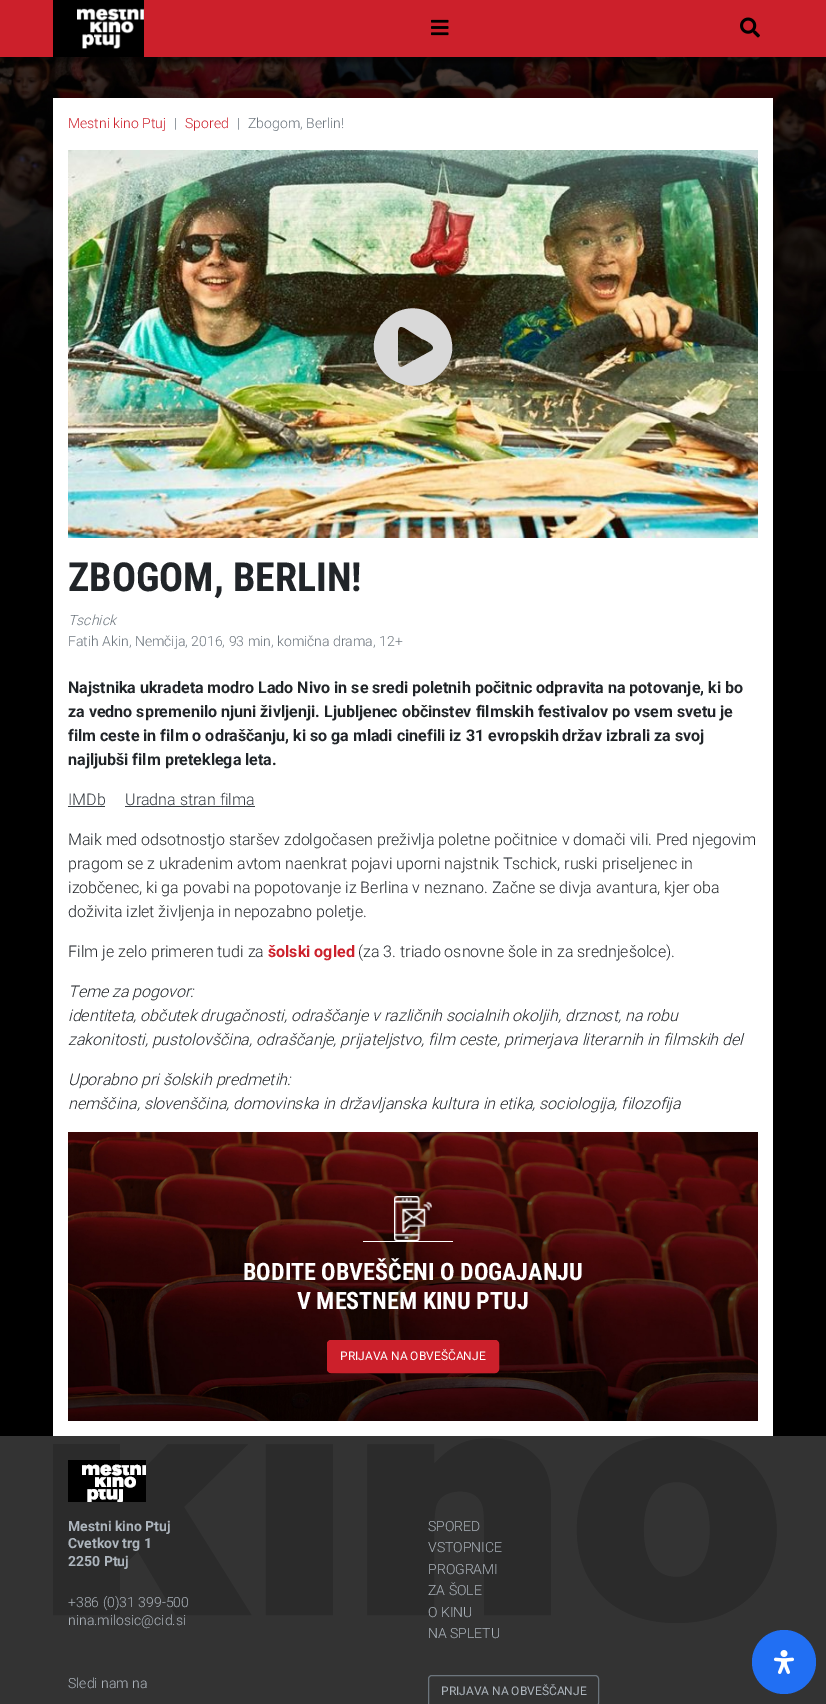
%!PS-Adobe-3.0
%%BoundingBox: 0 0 826 1704
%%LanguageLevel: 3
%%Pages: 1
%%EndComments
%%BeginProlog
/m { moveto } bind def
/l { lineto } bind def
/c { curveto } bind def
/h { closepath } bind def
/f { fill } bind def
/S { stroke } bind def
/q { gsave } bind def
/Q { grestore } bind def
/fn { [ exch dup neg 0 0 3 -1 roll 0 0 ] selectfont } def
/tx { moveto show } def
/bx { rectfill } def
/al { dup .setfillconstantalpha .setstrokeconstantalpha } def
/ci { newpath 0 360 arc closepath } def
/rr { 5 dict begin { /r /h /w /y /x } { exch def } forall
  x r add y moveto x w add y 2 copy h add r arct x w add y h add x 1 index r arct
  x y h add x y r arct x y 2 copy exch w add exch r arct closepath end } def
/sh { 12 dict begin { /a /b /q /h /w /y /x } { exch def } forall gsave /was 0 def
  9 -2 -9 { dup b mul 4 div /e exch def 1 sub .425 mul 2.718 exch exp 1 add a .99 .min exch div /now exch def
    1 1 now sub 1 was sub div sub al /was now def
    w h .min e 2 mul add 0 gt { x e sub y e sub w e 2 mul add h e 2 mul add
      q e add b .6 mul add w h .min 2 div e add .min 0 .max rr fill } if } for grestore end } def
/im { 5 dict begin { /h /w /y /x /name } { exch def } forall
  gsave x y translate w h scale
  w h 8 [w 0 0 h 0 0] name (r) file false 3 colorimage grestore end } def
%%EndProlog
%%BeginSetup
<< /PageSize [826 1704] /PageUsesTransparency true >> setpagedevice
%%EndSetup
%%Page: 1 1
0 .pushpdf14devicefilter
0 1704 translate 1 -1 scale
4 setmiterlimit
0 setgray
0 0 826 1704 bx
(image0.raw) 0 57 826 314 im
0 5 826 57 0 2.5 0.5 sh
0.8 0.125 0.169 setrgbcolor
0 0 826 57 bx
0 setgray
53 0 91 57 bx
(image1.raw) 77 8 67 41 im
(image2.raw) 431 19 18 17 im
(image3.raw) 740 17 20 21 im
1 setgray
53 98 720 1338 bx
/Roboto-Light 14 fn
0.8 0.125 0.169 setrgbcolor
(Mestni kino Ptuj) 68 128 tx
0.424 0.459 0.49 setrgbcolor
(|) 174 128 tx
0.8 0.125 0.169 setrgbcolor
(Spored) 185 128 tx
0.424 0.459 0.49 setrgbcolor
(|) 237 128 tx
(Zbogom, Berlin!) 248 128 tx
(image4.raw) 68 150 690 388 im
0.851 setgray
386 320 m 411 294 455 315 452 351 c 451 360 447 368 440 374 c 415 400 371 379 374 343 c 375 334 379 326 386 320 c h 431 351 m 439 346 423 339 422 339 c 408 330 l 406 329 403 326 400 327 c 397 329 398 334 398 336 c 398 358 l 398 360 397 368 402 367 c h f
/RobotoCondensed-Bold 40 fn
0.129 0.145 0.161 setrgbcolor
(ZBOGOM, BERLIN!) 68 591 tx
/Roboto-LightItalic 14 fn
0.424 0.459 0.49 setrgbcolor
(Tschick) 68 625 tx
/Roboto-Light 14 fn
(Fatih Akin, Nemčija, 2016, 93 min, komična drama, 12+) 68 646 tx
/Roboto-Bold 16 fn
0.129 0.145 0.161 setrgbcolor
(Najstnika ukradeta modro Lado Nivo in se sredi poletnih počitnic odpravita na potovanje, ki bo) 68 693 tx
(za vedno spremenilo njuni življenji. Ljubljenec občinstev filmskih festivalov po vsem svetu je) 68 717 tx
(film ceste in film o odraščanju, ki so ga mladi cinefili iz 31 evropskih držav izbrali za svoj) 68 741 tx
(najljubši film preteklega leta.) 68 765 tx
/Roboto-Light 16 fn
0.204 0.227 0.251 setrgbcolor
(IMDb) 68 805 tx
68 806 37 1 bx
(Uradna stran filma) 125 805 tx
125 806 130 1 bx
0.129 0.145 0.161 setrgbcolor
(Maik med odsotnostjo staršev zdolgočasen preživlja poletne počitnice v domači vili. Pred njegovim) 68 845 tx
(pragom se z ukradenim avtom naenkrat pojavi uporni najstnik Tschick, ruski priseljenec in) 68 869 tx
(izobčenec, ki ga povabi na popotovanje iz Berlina v neznano. Začne se divja avantura, kjer oba) 68 893 tx
(doživita izlet življenja in nepozabno poletje.) 68 917 tx
(Film je zelo primeren tudi za) 68 957 tx
/Roboto-Bold 16 fn
0.8 0.125 0.169 setrgbcolor
(šolski ogled) 268 957 tx
/Roboto-Light 16 fn
0.129 0.145 0.161 setrgbcolor
(\(za 3. triado osnovne šole in za srednješolce\).) 358 957 tx
/Roboto-LightItalic 16 fn
(Teme za pogovor:) 68 997 tx
(identiteta, občutek drugačnosti, odraščanje v različnih socialnih okoljih, drznost, na robu) 68 1021 tx
(zakonitosti, pustolovščina, odraščanje, prijateljstvo, film ceste, primerjava literarnih in filmskih del) 68 1045 tx
(Uporabno pri šolskih predmetih:) 68 1085 tx
(nemščina, slovenščina, domovinska in državljanska kultura in etika, sociologija, filozofija) 68 1109 tx
(image5.raw) 68 1132 690 289 im
(image6.raw) 394 1196 38 45 im
1 setgray
363 1241 90 1 bx
/RobotoCondensed-Bold 24 fn
(BODITE OBVEŠČENI O DOGAJANJU) 243 1280 tx
(V MESTNEM KINU PTUJ) 297 1309 tx
0.8 0.125 0.169 setrgbcolor
327.5 1340.5 171 32 3.5 rr q f Q
S
/Roboto-Regular 12 fn
1 setgray
(PRIJAVA NA OBVEŠČANJE) 340 1360 tx
0.2 setgray
0 1436 826 268 bx
(image7.raw) 53 1436 724 187 im
(image8.raw) 68 1460 78 42 im
/Roboto-Bold 14 fn
0.678 0.71 0.741 setrgbcolor
(Mestni kino Ptuj) 68 1531 tx
(Cvetkov trg 1) 68 1548 tx
(2250 Ptuj) 68 1566 tx
/Roboto-Light 14 fn
(+386 \(0\)31 399-500) 68 1607 tx
(nina.milosic@cid.si) 68 1625 tx
(SPORED) 428 1531 tx
(VSTOPNICE) 428 1552 tx
(PROGRAMI) 428 1574 tx
(ZA ŠOLE) 428 1595 tx
(O KINU) 428 1617 tx
(NA SPLETU) 428 1638 tx
(Sledi nam na) 68 1688 tx
0.424 0.459 0.49 setrgbcolor
428.5 1675.5 170 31 3.5 rr S
/Roboto-Regular 12 fn
0.678 0.71 0.741 setrgbcolor
(PRIJAVA NA OBVEŠČANJE) 441 1695 tx
0.129 0.435 0.953 setrgbcolor
784 1662 32 ci f
(image9.raw) 774 1650 20 24 im
.poppdf14devicefilter showpage
%%EOF
